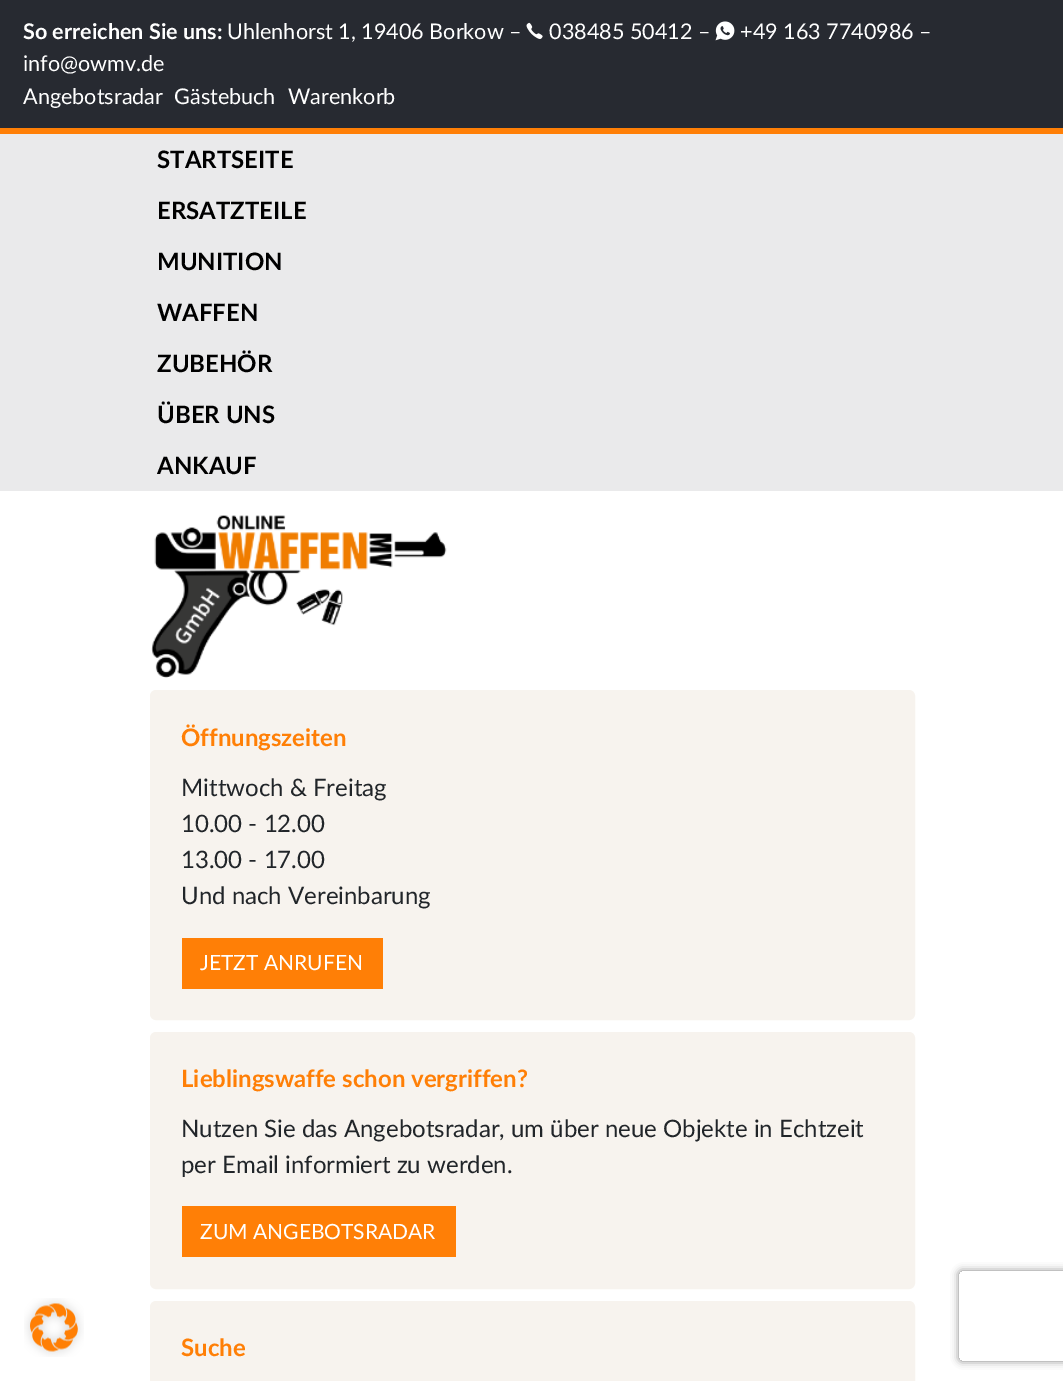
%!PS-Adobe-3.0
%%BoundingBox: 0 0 1063 1381
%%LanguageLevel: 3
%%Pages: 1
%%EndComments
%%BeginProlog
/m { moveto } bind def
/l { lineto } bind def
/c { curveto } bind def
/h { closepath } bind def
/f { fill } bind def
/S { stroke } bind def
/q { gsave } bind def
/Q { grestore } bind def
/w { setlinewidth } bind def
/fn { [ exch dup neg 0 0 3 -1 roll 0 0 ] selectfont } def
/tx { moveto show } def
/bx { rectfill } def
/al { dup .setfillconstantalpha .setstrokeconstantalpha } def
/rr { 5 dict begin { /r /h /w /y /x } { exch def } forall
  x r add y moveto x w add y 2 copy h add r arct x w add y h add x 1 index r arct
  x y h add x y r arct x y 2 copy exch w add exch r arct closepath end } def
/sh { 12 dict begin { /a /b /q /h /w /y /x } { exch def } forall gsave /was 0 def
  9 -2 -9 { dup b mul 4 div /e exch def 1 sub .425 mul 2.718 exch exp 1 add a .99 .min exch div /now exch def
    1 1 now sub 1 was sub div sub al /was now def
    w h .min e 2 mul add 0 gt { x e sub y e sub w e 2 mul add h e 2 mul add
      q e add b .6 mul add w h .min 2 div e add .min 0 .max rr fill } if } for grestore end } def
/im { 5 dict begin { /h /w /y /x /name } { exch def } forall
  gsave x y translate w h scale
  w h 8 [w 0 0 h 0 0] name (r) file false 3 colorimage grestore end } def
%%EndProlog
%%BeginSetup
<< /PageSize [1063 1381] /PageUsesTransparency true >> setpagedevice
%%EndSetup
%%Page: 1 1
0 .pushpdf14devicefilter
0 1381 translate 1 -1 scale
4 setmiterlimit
1 setgray
0 0 1063 1381 bx
0.153 0.165 0.192 setrgbcolor
0 0 1063 128 bx
/Lato-Bold 21.6 fn
1 setgray
(So erreichen Sie uns:) 23 39 tx
/Lato-Regular 21.6 fn
(Uhlenhorst 1, 19406 Borkow –) 227 39 tx
(image0.raw) 526 22 17 17 im
(038485 50412 –) 549 39 tx
(image1.raw) 715 21 20 20 im
(+49 163 7740986 –) 740 39 tx
(info@owmv.de) 23 71 tx
(Angebotsradar) 23 104 tx
(Gästebuch) 174 104 tx
(Warenkorb) 288 104 tx
0.918 0.918 0.922 setrgbcolor
0 134 1063 357 bx
1 0.498 0.024 setrgbcolor
0 128 1063 6 bx
/Lato-Bold 24 fn
0 setgray
(STARTSEITE) 157 168 tx
(ERSATZTEILE) 157 219 tx
(MUNITION) 157 270 tx
(WAFFEN) 157 321 tx
(ZUBEHÖR) 157 372 tx
(ÜBER UNS) 157 423 tx
(ANKAUF) 157 474 tx
(image2.raw) 151 515 296 163 im
0.969 0.953 0.933 setrgbcolor
151 691 763 328 5 rr q f Q
2 w
S
1 0.498 0.024 setrgbcolor
(Öffnungszeiten) 181 746 tx
/Lato-Regular 24 fn
0.129 0.145 0.161 setrgbcolor
(Mittwoch & Freitag) 181 796 tx
(10.00 - 12.00) 181 832 tx
(13.00 - 17.00) 181 868 tx
(Und nach Vereinbarung) 181 904 tx
1 0.498 0.024 setrgbcolor
182 938 201 51 bx
/Lato-Regular 21 fn
1 setgray
(JETZT ANRUFEN) 200 970 tx
0.969 0.953 0.933 setrgbcolor
151 1033 763 255 5 rr q f Q
S
/Lato-Bold 24 fn
1 0.498 0.024 setrgbcolor
(Lieblingswaffe schon vergriffen?) 181 1087 tx
/Lato-Regular 24 fn
0.129 0.145 0.161 setrgbcolor
(Nutzen Sie das Angebotsradar, um über neue Objekte in Echtzeit) 181 1137 tx
(per Email informiert zu werden.) 181 1173 tx
1 0.498 0.024 setrgbcolor
182 1206 274 51 bx
/Lato-Regular 21 fn
1 setgray
(ZUM ANGEBOTSRADAR) 200 1239 tx
0.969 0.953 0.933 setrgbcolor
151 1302 763 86 5 rr q f Q
S
/Lato-Bold 24 fn
1 0.498 0.024 setrgbcolor
(Suche) 181 1356 tx
q
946 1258 m 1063 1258 l 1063 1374 l 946 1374 l h 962 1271 m 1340 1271 l 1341.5 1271 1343 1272.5 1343 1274 c 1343 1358 l 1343 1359.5 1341.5 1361 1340 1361 c 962 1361 l 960.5 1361 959 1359.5 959 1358 c 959 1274 l 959 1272.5 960.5 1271 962 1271 c h eoclip newpath
0.502 setgray
959 1271 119 90 3 4 1 sh
Q
(image3.raw) 24 1298 60 59 im
.poppdf14devicefilter showpage
%%EOF
